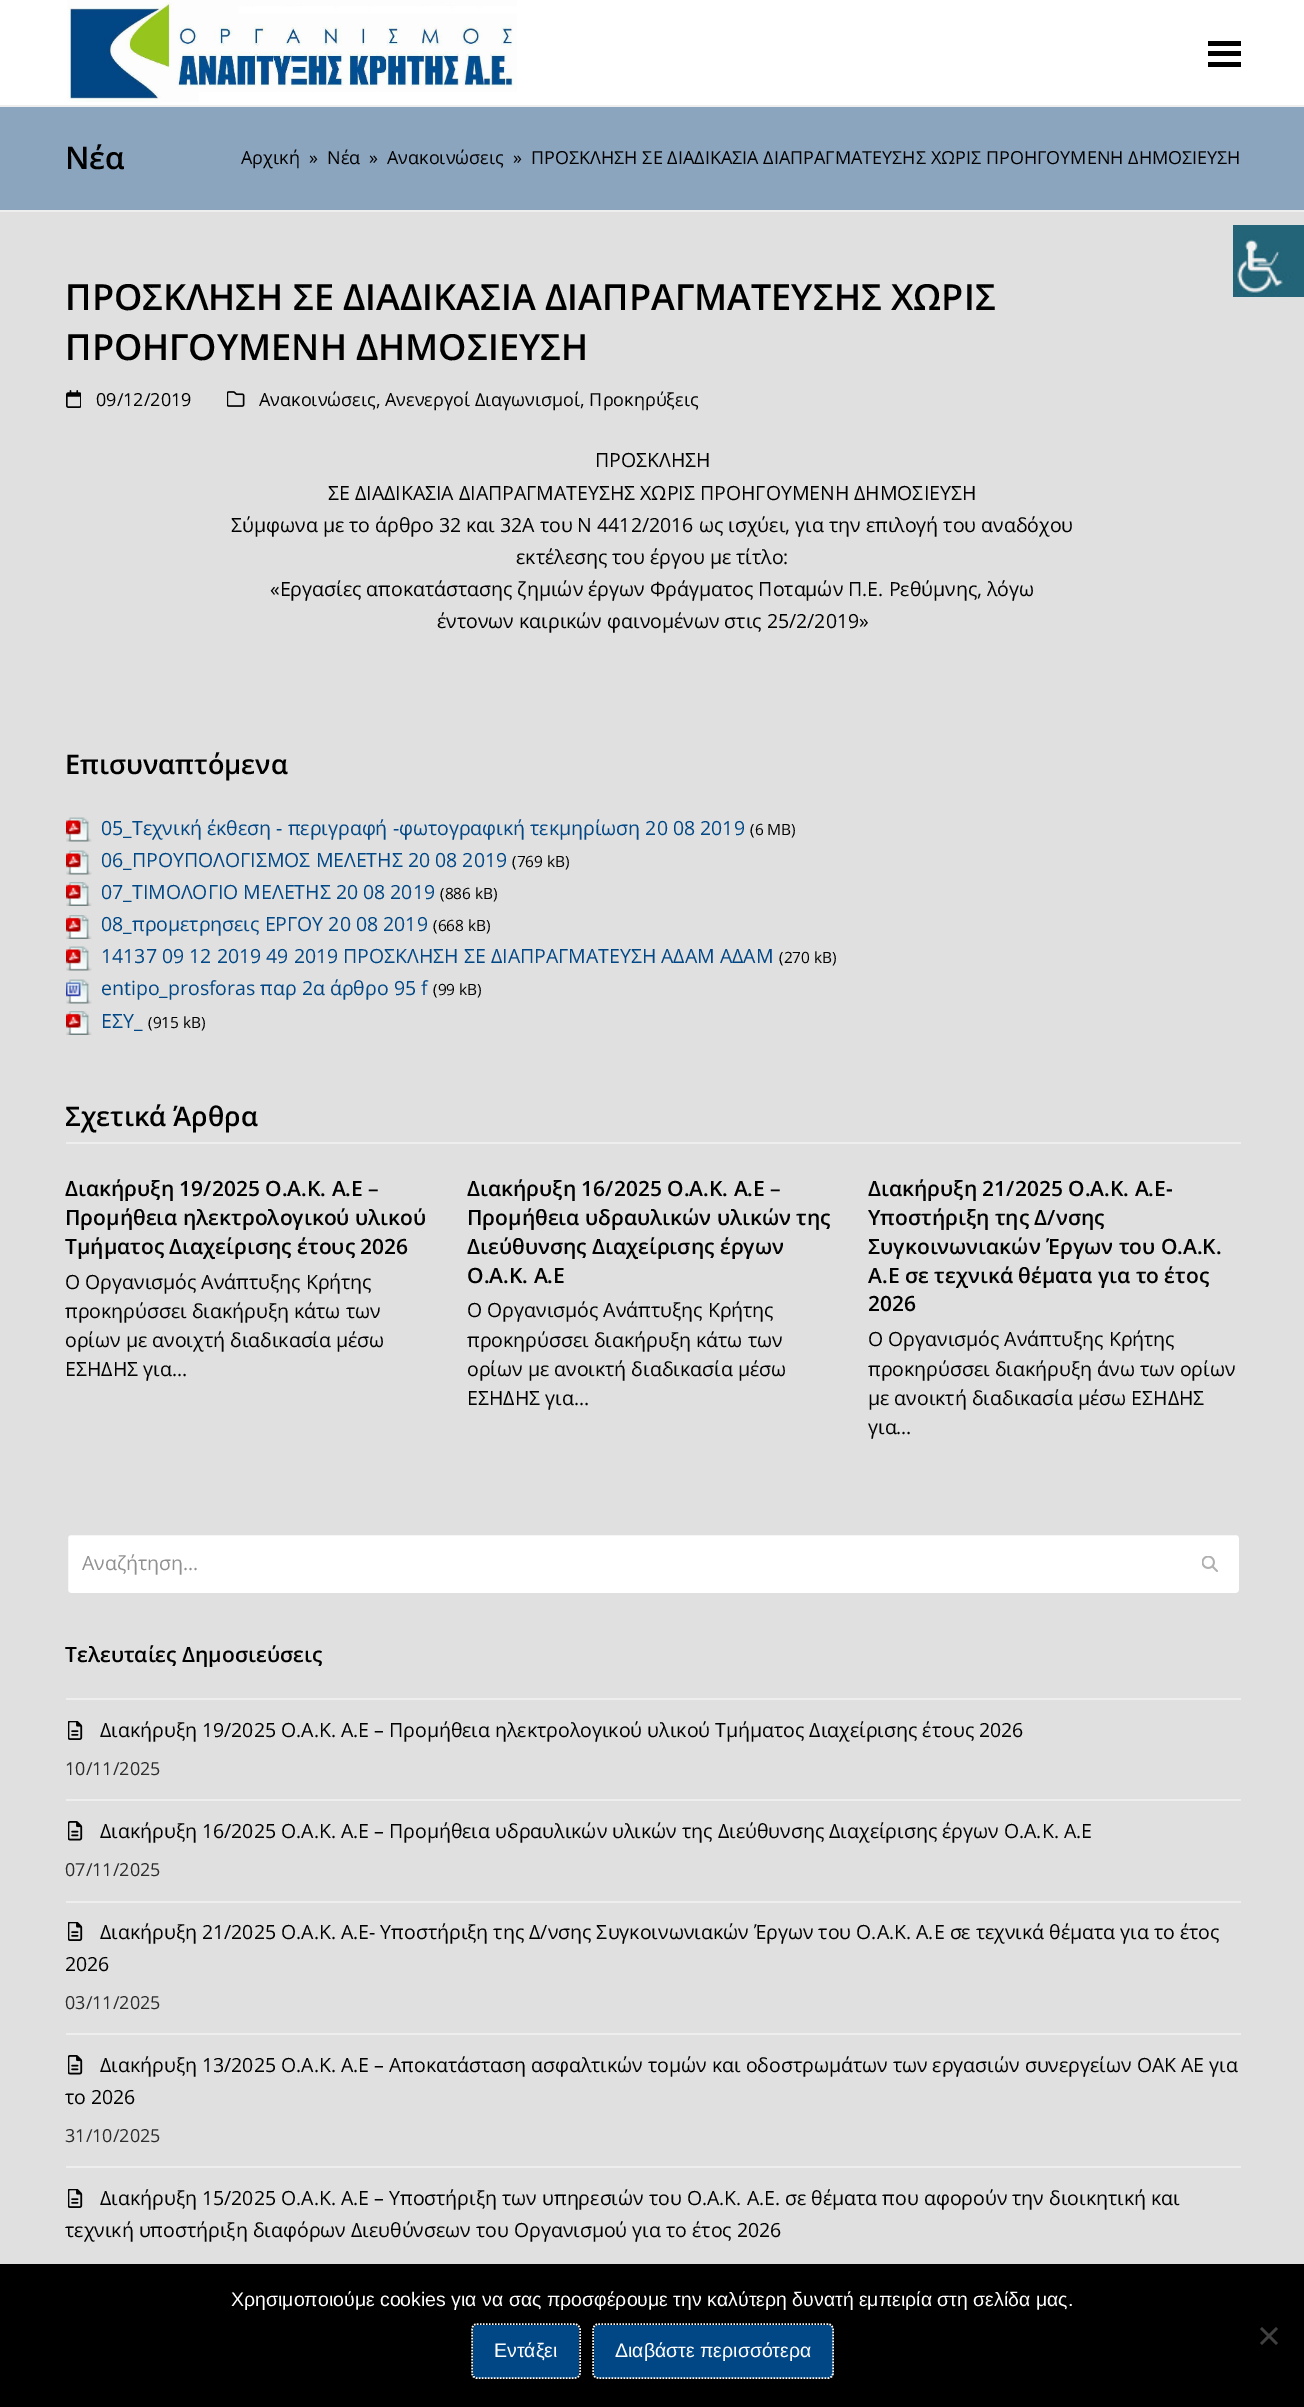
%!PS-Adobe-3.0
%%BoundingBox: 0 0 1304 2407
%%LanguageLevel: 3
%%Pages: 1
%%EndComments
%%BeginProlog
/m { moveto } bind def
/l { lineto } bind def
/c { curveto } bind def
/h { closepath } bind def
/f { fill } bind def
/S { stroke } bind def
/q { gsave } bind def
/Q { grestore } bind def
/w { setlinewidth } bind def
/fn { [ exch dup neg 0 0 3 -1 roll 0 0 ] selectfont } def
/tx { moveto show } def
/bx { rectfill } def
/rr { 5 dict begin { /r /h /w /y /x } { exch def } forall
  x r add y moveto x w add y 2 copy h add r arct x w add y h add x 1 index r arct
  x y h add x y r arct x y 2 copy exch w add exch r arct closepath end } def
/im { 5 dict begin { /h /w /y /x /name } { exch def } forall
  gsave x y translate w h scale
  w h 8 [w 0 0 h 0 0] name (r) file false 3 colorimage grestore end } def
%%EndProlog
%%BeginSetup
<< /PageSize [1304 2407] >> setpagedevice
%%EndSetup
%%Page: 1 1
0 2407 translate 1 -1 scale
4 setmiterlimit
0.878 setgray
0 0 1304 2407 bx
1 setgray
0 0 1304 105 bx
(image0.raw) 67 0 450 102 im
0 setgray
1208 51 33 5 bx
1208 41 33 5 bx
1208 62 33 5 bx
0.545 0.647 0.749 setrgbcolor
0 107 1304 103 bx
0.933 setgray
0 105 1304 2 bx
0 210 1304 2 bx
/OpenSans-SemiBold 31 fn
0 setgray
(Νέα) 65 169 tx
/OpenSans-Regular 18 fn
(Αρχική) 241 164 tx
(») 309 164 tx
(Νέα) 327 164 tx
(») 369 164 tx
(Ανακοινώσεις) 387 164 tx
(») 513 164 tx
(ΠΡΟΣΚΛΗΣΗ ΣΕ ΔΙΑΔΙΚΑΣΙΑ ΔΙΑΠΡΑΓΜΑΤΕΥΣΗΣ ΧΩΡΙΣ ΠΡΟΗΓΟΥΜΕΝΗ ΔΗΜΟΣΙΕΥΣΗ) 531 164 tx
/OpenSans-SemiBold 36 fn
(ΠΡΟΣΚΛΗΣΗ ΣΕ ΔΙΑΔΙΚΑΣΙΑ ΔΙΑΠΡΑΓΜΑΤΕΥΣΗΣ ΧΩΡΙΣ) 65 310 tx
(ΠΡΟΗΓΟΥΜΕΝΗ ΔΗΜΟΣΙΕΥΣΗ) 65 360 tx
(image1.raw) 66 390 15 18 im
/OpenSans-Regular 18 fn
(09/12/2019) 96 406 tx
(image2.raw) 227 391 18 16 im
(Ανακοινώσεις, Ανενεργοί Διαγωνισμοί, Προκηρύξεις) 259 406 tx
/OpenSans-Regular 19.5 fn
(ΠΡΟΣΚΛΗΣΗ) 595 467 tx
(ΣΕ ΔΙΑΔΙΚΑΣΙΑ ΔΙΑΠΡΑΓΜΑΤΕΥΣΗΣ ΧΩΡΙΣ ΠΡΟΗΓΟΥΜΕΝΗ ΔΗΜΟΣΙΕΥΣΗ) 328 500 tx
(Σύμφωνα με το άρθρο 32 και 32Α του Ν 4412/2016 ως ισχύει, για την επιλογή του αναδόχου) 231 532 tx
(εκτέλεσης του έργου με τίτλο:) 516 564 tx
(«Εργασίες αποκατάστασης ζημιών έργων Φράγματος Ποταμών Π.Ε. Ρεθύμνης, λόγω) 270 596 tx
(έντονων καιρικών φαινομένων στις 25/2/2019») 437 628 tx
/OpenSans-SemiBold 27 fn
(Επισυναπτόμενα) 65 774 tx
(image3.raw) 66 817 26 25 im
/OpenSans-Regular 19.5 fn
0.004 0.278 0.522 setrgbcolor
(05_Τεχνική έκθεση - περιγραφή -φωτογραφική τεκμηρίωση 20 08 2019) 101 835 tx
/OpenSans-Regular 15.5 fn
0 setgray
(\(6 MB\)) 750 835 tx
(image3.raw) 66 850 26 25 im
/OpenSans-Regular 19.5 fn
0.004 0.278 0.522 setrgbcolor
(06_ΠΡΟΥΠΟΛΟΓΙΣΜΟΣ ΜΕΛΕΤΗΣ 20 08 2019) 101 867 tx
/OpenSans-Regular 15.5 fn
0 setgray
(\(769 kB\)) 512 867 tx
(image4.raw) 66 882 26 24 im
/OpenSans-Regular 19.5 fn
0.004 0.278 0.522 setrgbcolor
(07_ΤΙΜΟΛΟΓΙΟ ΜΕΛΕΤΗΣ 20 08 2019) 101 899 tx
/OpenSans-Regular 15.5 fn
0 setgray
(\(886 kB\)) 440 899 tx
(image4.raw) 66 915 26 24 im
/OpenSans-Regular 19.5 fn
0.004 0.278 0.522 setrgbcolor
(08_προμετρησεις ΕΡΓΟΥ 20 08 2019) 101 931 tx
/OpenSans-Regular 15.5 fn
0 setgray
(\(668 kB\)) 433 931 tx
(image3.raw) 66 946 26 25 im
/OpenSans-Regular 19.5 fn
0.004 0.278 0.522 setrgbcolor
(14137 09 12 2019 49 2019 ΠΡΟΣΚΛΗΣΗ ΣΕ ΔΙΑΠΡΑΓΜΑΤΕΥΣΗ ΑΔΑΜ ΑΔΑΜ) 101 963 tx
/OpenSans-Regular 15.5 fn
0 setgray
(\(270 kB\)) 779 963 tx
(image5.raw) 66 979 26 25 im
/OpenSans-Regular 19.5 fn
0.004 0.278 0.522 setrgbcolor
(entipo_prosforas παρ 2α άρθρο 95 f) 101 995 tx
/OpenSans-Regular 15.5 fn
0 setgray
(\(99 kB\)) 433 995 tx
(image4.raw) 66 1011 26 24 im
/OpenSans-Regular 19.5 fn
0.004 0.278 0.522 setrgbcolor
(ΕΣΥ_) 101 1028 tx
/OpenSans-Regular 15.5 fn
0 setgray
(\(915 kB\)) 148 1028 tx
0.933 setgray
66 1142 1175 2 bx
/OpenSans-SemiBold 27 fn
0 setgray
(Σχετικά Άρθρα) 65 1126 tx
/OpenSans-SemiBold 21 fn
(Διακήρυξη 19/2025 Ο.Α.Κ. Α.Ε –) 65 1196 tx
(Προμήθεια ηλεκτρολογικού υλικού) 65 1225 tx
(Τμήματος Διαχείρισης έτους 2026) 65 1254 tx
/OpenSans-Regular 19.5 fn
(Ο Οργανισμός Ανάπτυξης Κρήτης) 65 1289 tx
(προκηρύσσει διακήρυξη κάτω των) 65 1318 tx
(ορίων με ανοιχτή διαδικασία μέσω) 65 1347 tx
(ΕΣΗΔΗΣ για…) 65 1376 tx
/OpenSans-SemiBold 21 fn
(Διακήρυξη 16/2025 Ο.Α.Κ. Α.Ε –) 467 1196 tx
(Προμήθεια υδραυλικών υλικών της) 467 1225 tx
(Διεύθυνσης Διαχείρισης έργων) 467 1254 tx
(Ο.Α.Κ. Α.Ε) 467 1283 tx
/OpenSans-Regular 19.5 fn
(Ο Οργανισμός Ανάπτυξης Κρήτης) 467 1317 tx
(προκηρύσσει διακήρυξη κάτω των) 467 1347 tx
(ορίων με ανοικτή διαδικασία μέσω) 467 1376 tx
(ΕΣΗΔΗΣ για…) 467 1405 tx
/OpenSans-SemiBold 21 fn
(Διακήρυξη 21/2025 Ο.Α.Κ. Α.Ε-) 868 1196 tx
(Υποστήριξη της Δ/νσης) 868 1225 tx
(Συγκοινωνιακών Έργων του Ο.Α.Κ.) 868 1254 tx
(Α.Ε σε τεχνικά θέματα για το έτος) 868 1283 tx
(2026) 868 1311 tx
/OpenSans-Regular 19.5 fn
(Ο Οργανισμός Ανάπτυξης Κρήτης) 868 1346 tx
(προκηρύσσει διακήρυξη άνω των ορίων) 868 1376 tx
(με ανοικτή διαδικασία μέσω ΕΣΗΔΗΣ) 868 1405 tx
(για…) 868 1434 tx
1 setgray
67 1534 1173 60 4 rr q f Q
0.878 setgray
2 w
S
0.565 setgray
(Αναζήτηση...) 82 1570 tx
(image6.raw) 1202 1556 16 16 im
/OpenSans-SemiBold 21 fn
0 setgray
(Τελευταίες Δημοσιεύσεις) 65 1662 tx
0.933 setgray
66 1698 1175 2 bx
66 1799 1175 2 bx
(image7.raw) 68 1721 15 19 im
/OpenSans-Regular 19.5 fn
0 setgray
(Διακήρυξη 19/2025 Ο.Α.Κ. Α.Ε – Προμήθεια ηλεκτρολογικού υλικού Τμήματος Διαχείρισης έτους 2026) 100 1737 tx
/OpenSans-Regular 18 fn
0.176 setgray
(10/11/2025) 65 1775 tx
0.933 setgray
66 1901 1175 2 bx
(image8.raw) 68 1821 15 20 im
/OpenSans-Regular 19.5 fn
0 setgray
(Διακήρυξη 16/2025 Ο.Α.Κ. Α.Ε – Προμήθεια υδραυλικών υλικών της Διεύθυνσης Διαχείρισης έργων Ο.Α.Κ. Α.Ε) 100 1838 tx
/OpenSans-Regular 18 fn
0.176 setgray
(07/11/2025) 65 1876 tx
0.933 setgray
66 2033 1175 2 bx
(image7.raw) 68 1922 15 19 im
/OpenSans-Regular 19.5 fn
0 setgray
(Διακήρυξη 21/2025 Ο.Α.Κ. Α.Ε- Υποστήριξη της Δ/νσης Συγκοινωνιακών Έργων του Ο.Α.Κ. Α.Ε σε τεχνικά θέματα για το έτος) 100 1939 tx
(2026) 65 1971 tx
/OpenSans-Regular 18 fn
0.176 setgray
(03/11/2025) 65 2009 tx
0.933 setgray
66 2166 1175 2 bx
(image8.raw) 68 2055 15 20 im
/OpenSans-Regular 19.5 fn
0 setgray
(Διακήρυξη 13/2025 Ο.Α.Κ. Α.Ε – Αποκατάσταση ασφαλτικών τομών και οδοστρωμάτων των εργασιών συνεργείων ΟΑΚ ΑΕ για) 100 2072 tx
(το 2026) 65 2104 tx
/OpenSans-Regular 18 fn
0.176 setgray
(31/10/2025) 65 2142 tx
(image7.raw) 68 2189 15 19 im
/OpenSans-Regular 19.5 fn
0 setgray
(Διακήρυξη 15/2025 Ο.Α.Κ. Α.Ε – Υποστήριξη των υπηρεσιών του Ο.Α.Κ. Α.Ε. σε θέματα που αφορούν την διοικητική και) 100 2205 tx
(τεχνική υποστήριξη διαφόρων Διευθύνσεων του Οργανισμού για το έτος 2026) 65 2237 tx
(image9.raw) 1233 225 71 72 im
0 2264 1304 143 bx
/LiberationSans-Regular 19.5 fn
1 setgray
(Χρησιμοποιούμε cookies για να σας προσφέρουμε την καλύτερη δυνατή εμπειρία στη σελίδα μας.) 231 2306 tx
0.251 setgray
1276 2327 m 1278 2329 l 1262 2345 l 1260 2343 l h f
1260 2329 m 1262 2327 l 1278 2343 l 1276 2345 l h f
0.004 0.278 0.522 setrgbcolor
473 2325 106 53 5 rr f
1 setgray
1.5 w
[1.5 1.5] 0 setdash
477 2324 m 574.5 2324 l 577.5 2324 580 2326.5 580 2329.5 c 580 2373 l 580 2376 577.5 2378 574.5 2378 c 477 2378 l 474 2378 472 2376 472 2373 c 472 2329.5 l 472 2326.5 474 2324 477 2324 c h S
(Εντάξει) 494 2357 tx
0.004 0.278 0.522 setrgbcolor
594 2325 239 53 5 rr f
1 setgray
598.5 2324 m 828 2324 l 831 2324 833 2326.5 833 2329.5 c 833 2373 l 833 2376 831 2378 828 2378 c 598.5 2378 l 595.5 2378 593 2376 593 2373 c 593 2329.5 l 593 2326.5 595.5 2324 598.5 2324 c h S
(Διαβάστε περισσότερα) 615 2357 tx
showpage
%%EOF
